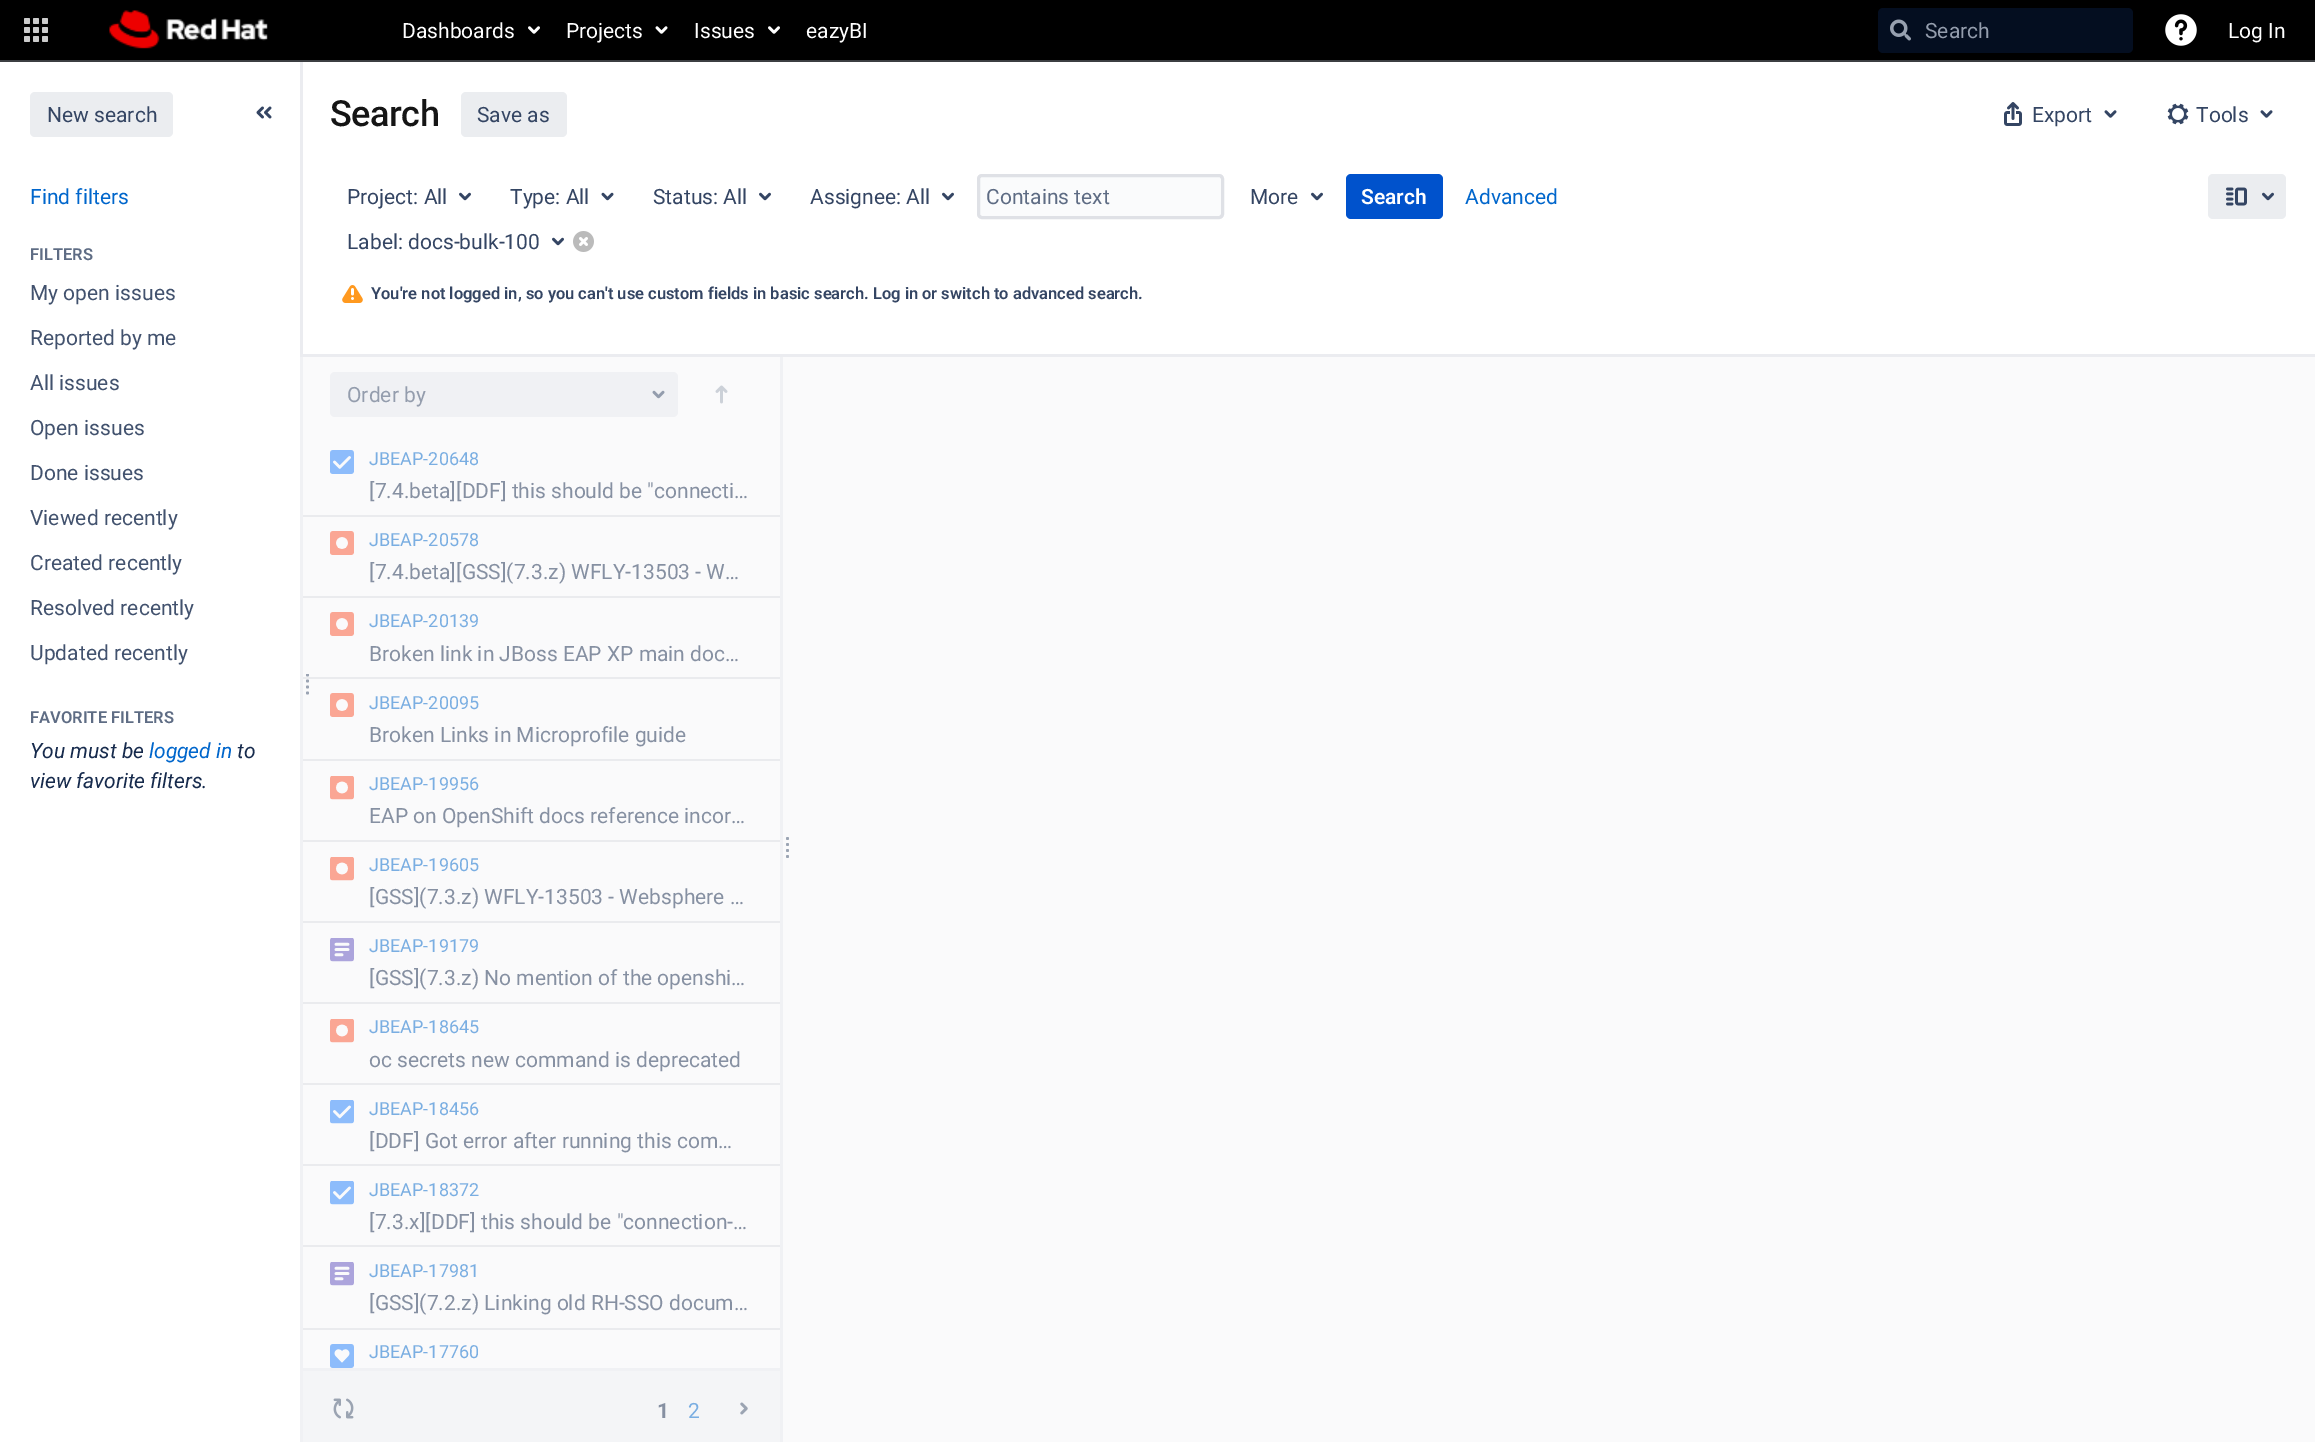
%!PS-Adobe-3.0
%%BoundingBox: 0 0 2315 1442
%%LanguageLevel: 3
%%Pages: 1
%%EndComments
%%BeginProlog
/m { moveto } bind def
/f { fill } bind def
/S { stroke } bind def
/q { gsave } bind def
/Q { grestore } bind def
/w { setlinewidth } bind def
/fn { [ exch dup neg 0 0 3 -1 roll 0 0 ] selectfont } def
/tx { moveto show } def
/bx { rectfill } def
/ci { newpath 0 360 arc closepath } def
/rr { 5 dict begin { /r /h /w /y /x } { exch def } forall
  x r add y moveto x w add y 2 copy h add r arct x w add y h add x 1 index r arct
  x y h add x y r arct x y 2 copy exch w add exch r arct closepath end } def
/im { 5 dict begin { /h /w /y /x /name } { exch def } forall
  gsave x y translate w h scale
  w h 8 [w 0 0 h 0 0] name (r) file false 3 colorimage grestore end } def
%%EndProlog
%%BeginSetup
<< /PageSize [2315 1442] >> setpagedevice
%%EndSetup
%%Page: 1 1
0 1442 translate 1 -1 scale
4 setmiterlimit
1 setgray
0 0 2315 1442 bx
0 setgray
0 0 2315 60 bx
0.235 0.247 0.259 setrgbcolor
0 60 2315 2 bx
(image0.raw) 24 18 24 24 im
(image1.raw) 109 10 159 39 im
/Roboto-Regular 21 fn
1 setgray
(Dashboards) 402 38 tx
(image2.raw) 528 26 12 8 im
(Projects) 566 38 tx
(image3.raw) 655 26 13 8 im
(Issues) 694 38 tx
(image2.raw) 768 26 12 8 im
(eazyBI) 806 38 tx
0.016 0.055 0.125 setrgbcolor
1878 8 255 45 5 rr f
(image4.raw) 1890 19 21 22 im
0.58 0.616 0.678 setrgbcolor
(Search) 1925 38 tx
(image5.raw) 2165 14 32 32 im
1 setgray
(Log In) 2228 38 tx
0.98 0.98 0.984 setrgbcolor
303 357 2012 1085 bx
0.922 0.929 0.941 setrgbcolor
30 92 143 45 5 rr f
0.204 0.271 0.388 setrgbcolor
(New search) 47 122 tx
(image6.raw) 256 106 16 13 im
0 0.4 0.8 setrgbcolor
(Find filters) 30 204 tx
/Roboto-SemiBold 16.5 fn
0.369 0.424 0.518 setrgbcolor
(FILTERS) 30 260 tx
/Roboto-Regular 21 fn
0.259 0.322 0.431 setrgbcolor
(My open issues) 30 300 tx
(Reported by me) 30 345 tx
(All issues) 30 390 tx
(Open issues) 30 435 tx
(Done issues) 30 480 tx
(Viewed recently) 30 525 tx
(Created recently) 30 570 tx
(Resolved recently) 30 615 tx
(Updated recently) 30 660 tx
/Roboto-SemiBold 16.5 fn
0.369 0.424 0.518 setrgbcolor
(FAVORITE FILTERS) 30 723 tx
/Roboto-Italic 21 fn
0.09 0.169 0.302 setrgbcolor
(You must be) 30 758 tx
0 0.4 0.8 setrgbcolor
(logged in) 149 758 tx
0.09 0.169 0.302 setrgbcolor
(to) 237 758 tx
(view favorite filters.) 30 788 tx
0.922 0.925 0.941 setrgbcolor
300 354 2015 3 bx
300 62 3 295 bx
0.918 0.922 0.933 setrgbcolor
300 515 480 2 bx
300 596 480 2 bx
300 677 480 2 bx
300 759 480 2 bx
300 840 480 2 bx
300 921 480 2 bx
300 1002 480 2 bx
300 1083 480 2 bx
300 1164 480 2 bx
300 1245 480 2 bx
300 1328 480 2 bx
0.941 0.945 0.957 setrgbcolor
300 1368 480 3 bx
300 357 3 1085 bx
q
306 674 3 21 rectclip
0.608 0.643 0.702 setrgbcolor
307.5 675 1.5 ci f
Q
0.608 0.643 0.702 setrgbcolor
307.5 681 1.5 ci f
307.5 687 1.5 ci f
307.5 693 1.5 ci f
/Roboto-Medium 36 fn
0.082 setgray
330 126 m -0.5 0 (Search) ashow
0.922 0.929 0.941 setrgbcolor
461 92 106 45 5 rr f
/Roboto-Regular 21 fn
0.204 0.271 0.388 setrgbcolor
(Save as) 477 122 tx
(image7.raw) 2004 102 18 24 im
(Export) 2032 122 tx
(image8.raw) 2104 110 13 8 im
(image9.raw) 2167 103 22 22 im
(Tools) 2196 122 tx
(image8.raw) 2260 110 13 8 im
(Project: All) 347 204 tx
(image10.raw) 459 192 12 9 im
(Type: All) 510 204 tx
(image11.raw) 601 192 13 9 im
(Status: All) 653 204 tx
(image10.raw) 759 192 12 9 im
(Assignee: All) 810 204 tx
(image10.raw) 942 192 12 9 im
0.98 0.984 0.988 setrgbcolor
978.5 175.5 244 42 3.5 rr q f Q
0.875 0.882 0.902 setrgbcolor
3 w
S
0.369 0.424 0.518 setrgbcolor
(Contains text) 986 204 tx
0.204 0.271 0.388 setrgbcolor
(More) 1250 204 tx
(image10.raw) 1311 192 12 9 im
0 0.322 0.8 setrgbcolor
1346 174 97 45 5 rr f
/Roboto-SemiBold 21 fn
1 setgray
(Search) 1361 204 tx
/Roboto-Regular 21 fn
0.204 0.271 0.388 setrgbcolor
(Label: docs-bulk-100) 347 249 tx
(image10.raw) 552 237 12 9 im
(image12.raw) 573 231 21 21 im
0 0.4 0.8 setrgbcolor
(Advanced) 1465 204 tx
0.922 0.929 0.941 setrgbcolor
2208 174 78 45 5 rr f
(image13.raw) 2226 187 21 19 im
(image14.raw) 2262 192 12 9 im
(image15.raw) 342 285 21 18 im
/Roboto-SemiBold 16.5 fn
0.204 0.271 0.388 setrgbcolor
(You're not logged in, so you can't use custom fields in basic search. Log in or switch to advanced search.) 371 299 tx
0.941 0.945 0.957 setrgbcolor
330 372 348 45 5 rr f
/Roboto-Regular 21 fn
0.58 0.616 0.678 setrgbcolor
(Order by) 347 402 tx
(image16.raw) 652 390 13 9 im
(image17.raw) 715 385 13 19 im
(image18.raw) 330 450 24 24 im
/Roboto-Regular 18 fn
0.478 0.682 0.886 setrgbcolor
(JBEAP-20648) 369 465 tx
/Roboto-Regular 21 fn
0.525 0.565 0.635 setrgbcolor
([7.4.beta][DDF] this should be "connecti…) 369 498 tx
(image19.raw) 330 531 24 24 im
/Roboto-Regular 18 fn
0.478 0.682 0.886 setrgbcolor
(JBEAP-20578) 369 546 tx
/Roboto-Regular 21 fn
0.525 0.565 0.635 setrgbcolor
([7.4.beta][GSS]\(7.3.z\) WFLY-13503 - W…) 369 579 tx
(image19.raw) 330 612 24 24 im
/Roboto-Regular 18 fn
0.478 0.682 0.886 setrgbcolor
(JBEAP-20139) 369 627 tx
/Roboto-Regular 21 fn
0.525 0.565 0.635 setrgbcolor
(Broken link in JBoss EAP XP main doc…) 369 661 tx
(image19.raw) 330 693 24 24 im
/Roboto-Regular 18 fn
0.478 0.682 0.886 setrgbcolor
(JBEAP-20095) 369 709 tx
/Roboto-Regular 21 fn
0.525 0.565 0.635 setrgbcolor
(Broken Links in Microprofile guide) 369 742 tx
(image20.raw) 330 776 24 24 im
/Roboto-Regular 18 fn
0.478 0.682 0.886 setrgbcolor
(JBEAP-19956) 369 790 tx
/Roboto-Regular 21 fn
0.525 0.565 0.635 setrgbcolor
(EAP on OpenShift docs reference incor…) 369 823 tx
(image20.raw) 330 857 24 24 im
/Roboto-Regular 18 fn
0.478 0.682 0.886 setrgbcolor
(JBEAP-19605) 369 871 tx
/Roboto-Regular 21 fn
0.525 0.565 0.635 setrgbcolor
([GSS]\(7.3.z\) WFLY-13503 - Websphere …) 369 904 tx
(image21.raw) 330 938 24 24 im
/Roboto-Regular 18 fn
0.478 0.682 0.886 setrgbcolor
(JBEAP-19179) 369 952 tx
/Roboto-Regular 21 fn
0.525 0.565 0.635 setrgbcolor
([GSS]\(7.3.z\) No mention of the openshi…) 369 985 tx
(image20.raw) 330 1019 24 24 im
/Roboto-Regular 18 fn
0.478 0.682 0.886 setrgbcolor
(JBEAP-18645) 369 1033 tx
/Roboto-Regular 21 fn
0.525 0.565 0.635 setrgbcolor
(oc secrets new command is deprecated) 369 1067 tx
(image22.raw) 330 1100 24 24 im
/Roboto-Regular 18 fn
0.478 0.682 0.886 setrgbcolor
(JBEAP-18456) 369 1115 tx
/Roboto-Regular 21 fn
0.525 0.565 0.635 setrgbcolor
([DDF] Got error after running this com…) 369 1148 tx
(image22.raw) 330 1181 24 24 im
/Roboto-Regular 18 fn
0.478 0.682 0.886 setrgbcolor
(JBEAP-18372) 369 1196 tx
/Roboto-Regular 21 fn
0.525 0.565 0.635 setrgbcolor
([7.3.x][DDF] this should be "connection-…) 369 1229 tx
(image21.raw) 330 1262 24 24 im
/Roboto-Regular 18 fn
0.478 0.682 0.886 setrgbcolor
(JBEAP-17981) 369 1277 tx
/Roboto-Regular 21 fn
0.525 0.565 0.635 setrgbcolor
([GSS]\(7.2.z\) Linking old RH-SSO docum…) 369 1310 tx
(image23.raw) 330 1344 24 24 im
/Roboto-Regular 18 fn
0.478 0.682 0.886 setrgbcolor
(JBEAP-17760) 369 1358 tx
0.957 0.961 0.969 setrgbcolor
303 1371 477 71 bx
(image24.raw) 333 1398 21 21 im
/Roboto-Bold 21 fn
0.525 0.565 0.635 setrgbcolor
(1) 657 1418 tx
/Roboto-Regular 21 fn
0.478 0.682 0.886 setrgbcolor
(2) 688 1418 tx
(image25.raw) 740 1402 8 13 im
0.941 0.945 0.957 setrgbcolor
780 357 3 1085 bx
0.608 0.643 0.702 setrgbcolor
787.5 838.5 1.5 ci f
787.5 844.5 1.5 ci f
787.5 850.5 1.5 ci f
787.5 856.5 1.5 ci f
showpage
%%EOF
